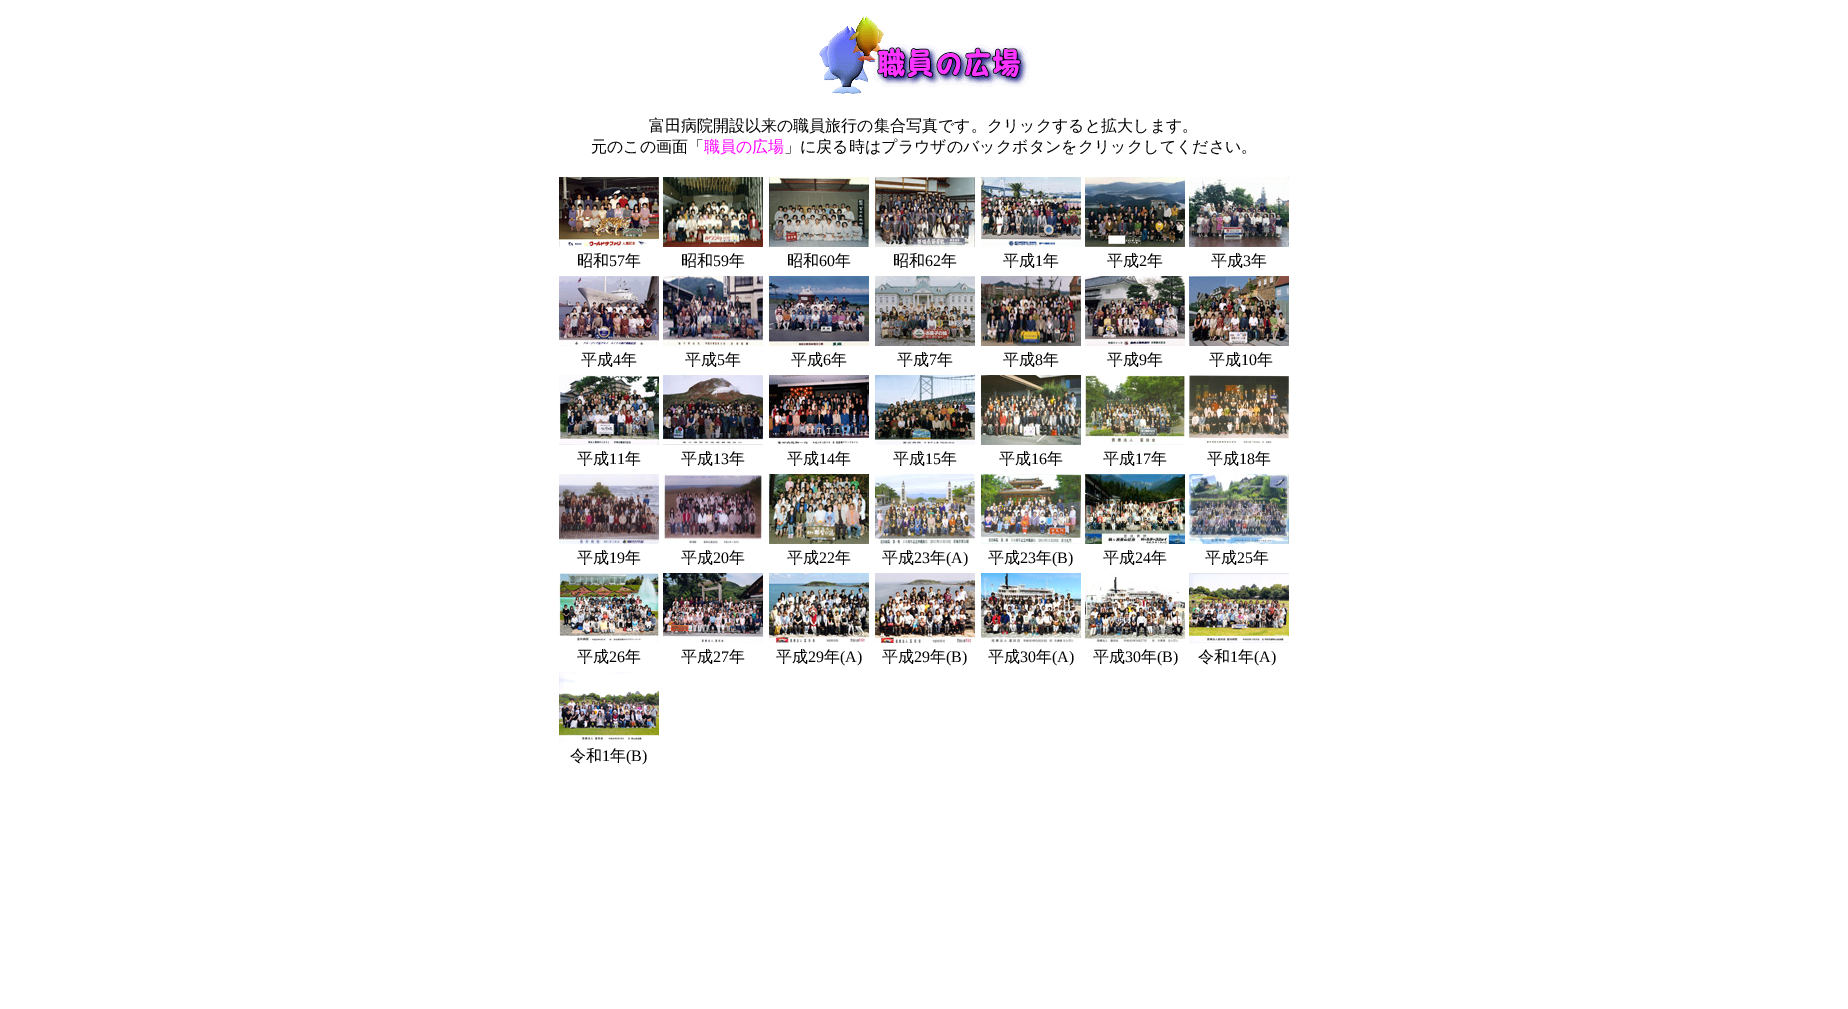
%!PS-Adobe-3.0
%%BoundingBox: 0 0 1848 1009
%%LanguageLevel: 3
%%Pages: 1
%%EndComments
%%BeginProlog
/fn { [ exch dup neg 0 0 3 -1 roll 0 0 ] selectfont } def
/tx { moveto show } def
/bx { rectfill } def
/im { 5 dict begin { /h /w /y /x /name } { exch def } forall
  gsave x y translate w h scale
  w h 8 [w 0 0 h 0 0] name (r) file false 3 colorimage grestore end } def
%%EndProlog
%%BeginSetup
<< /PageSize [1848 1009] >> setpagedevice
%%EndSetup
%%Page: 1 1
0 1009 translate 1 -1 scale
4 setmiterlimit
1 setgray
0 0 1848 1009 bx
(image0.raw) 819 16 211 78 im
/WenQuanYiZenHei-Medium 16 fn
0 setgray
(富田病院開設以来の職員旅行の集合写真です。クリックすると拡大します。) 649 131 tx
(元のこの画面「) 591 152 tx
1 0 1 setrgbcolor
(職員の広場) 704 152 tx
0 setgray
(」に戻る時はプラウザのバックボタンをクリックしてください。) 784 152 tx
(image1.raw) 559 177 100 70 im
(昭和) 577 266 tx
/LiberationSerif-Regular 16 fn
(57) 609 266 tx
/WenQuanYiZenHei-Medium 16 fn
(年) 625 266 tx
(image2.raw) 663 177 100 70 im
(昭和) 681 266 tx
/LiberationSerif-Regular 16 fn
(59) 713 266 tx
/WenQuanYiZenHei-Medium 16 fn
(年) 729 266 tx
(image3.raw) 769 177 100 70 im
(昭和) 787 266 tx
/LiberationSerif-Regular 16 fn
(60) 819 266 tx
/WenQuanYiZenHei-Medium 16 fn
(年) 835 266 tx
(image4.raw) 875 177 100 70 im
(昭和) 893 266 tx
/LiberationSerif-Regular 16 fn
(62) 925 266 tx
/WenQuanYiZenHei-Medium 16 fn
(年) 941 266 tx
(image5.raw) 981 177 100 70 im
(平成) 1003 266 tx
/LiberationSerif-Regular 16 fn
(1) 1035 266 tx
/WenQuanYiZenHei-Medium 16 fn
(年) 1043 266 tx
(image6.raw) 1085 177 100 70 im
(平成) 1107 266 tx
/LiberationSerif-Regular 16 fn
(2) 1139 266 tx
/WenQuanYiZenHei-Medium 16 fn
(年) 1147 266 tx
(image7.raw) 1189 177 100 70 im
(平成) 1211 266 tx
/LiberationSerif-Regular 16 fn
(3) 1243 266 tx
/WenQuanYiZenHei-Medium 16 fn
(年) 1251 266 tx
(image8.raw) 559 276 100 70 im
(平成) 581 365 tx
/LiberationSerif-Regular 16 fn
(4) 613 365 tx
/WenQuanYiZenHei-Medium 16 fn
(年) 621 365 tx
(image9.raw) 663 276 100 70 im
(平成) 685 365 tx
/LiberationSerif-Regular 16 fn
(5) 717 365 tx
/WenQuanYiZenHei-Medium 16 fn
(年) 725 365 tx
(image10.raw) 769 276 100 70 im
(平成) 791 365 tx
/LiberationSerif-Regular 16 fn
(6) 823 365 tx
/WenQuanYiZenHei-Medium 16 fn
(年) 831 365 tx
(image11.raw) 875 276 100 70 im
(平成) 897 365 tx
/LiberationSerif-Regular 16 fn
(7) 929 365 tx
/WenQuanYiZenHei-Medium 16 fn
(年) 937 365 tx
(image12.raw) 981 276 100 70 im
(平成) 1003 365 tx
/LiberationSerif-Regular 16 fn
(8) 1035 365 tx
/WenQuanYiZenHei-Medium 16 fn
(年) 1043 365 tx
(image13.raw) 1085 276 100 70 im
(平成) 1107 365 tx
/LiberationSerif-Regular 16 fn
(9) 1139 365 tx
/WenQuanYiZenHei-Medium 16 fn
(年) 1147 365 tx
(image14.raw) 1189 276 100 70 im
(平成) 1209 365 tx
/LiberationSerif-Regular 16 fn
(10) 1241 365 tx
/WenQuanYiZenHei-Medium 16 fn
(年) 1257 365 tx
(image15.raw) 559 375 100 70 im
(平成) 577 464 tx
/LiberationSerif-Regular 16 fn
(11) 609 464 tx
/WenQuanYiZenHei-Medium 16 fn
(年) 625 464 tx
(image16.raw) 663 375 100 70 im
(平成) 681 464 tx
/LiberationSerif-Regular 16 fn
(13) 713 464 tx
/WenQuanYiZenHei-Medium 16 fn
(年) 729 464 tx
(image17.raw) 769 375 100 70 im
(平成) 787 464 tx
/LiberationSerif-Regular 16 fn
(14) 819 464 tx
/WenQuanYiZenHei-Medium 16 fn
(年) 835 464 tx
(image18.raw) 875 375 100 70 im
(平成) 893 464 tx
/LiberationSerif-Regular 16 fn
(15) 925 464 tx
/WenQuanYiZenHei-Medium 16 fn
(年) 941 464 tx
(image19.raw) 981 375 100 70 im
(平成) 999 464 tx
/LiberationSerif-Regular 16 fn
(16) 1031 464 tx
/WenQuanYiZenHei-Medium 16 fn
(年) 1047 464 tx
(image20.raw) 1085 375 100 70 im
(平成) 1103 464 tx
/LiberationSerif-Regular 16 fn
(17) 1135 464 tx
/WenQuanYiZenHei-Medium 16 fn
(年) 1151 464 tx
(image21.raw) 1189 375 100 69 im
(平成) 1207 464 tx
/LiberationSerif-Regular 16 fn
(18) 1239 464 tx
/WenQuanYiZenHei-Medium 16 fn
(年) 1255 464 tx
(image22.raw) 559 474 100 70 im
(平成) 577 563 tx
/LiberationSerif-Regular 16 fn
(19) 609 563 tx
/WenQuanYiZenHei-Medium 16 fn
(年) 625 563 tx
(image23.raw) 663 474 100 70 im
(平成) 681 563 tx
/LiberationSerif-Regular 16 fn
(20) 713 563 tx
/WenQuanYiZenHei-Medium 16 fn
(年) 729 563 tx
(image24.raw) 769 474 100 70 im
(平成) 787 563 tx
/LiberationSerif-Regular 16 fn
(22) 819 563 tx
/WenQuanYiZenHei-Medium 16 fn
(年) 835 563 tx
(image25.raw) 875 474 100 70 im
(平成) 882 563 tx
/LiberationSerif-Regular 16 fn
(23) 914 563 tx
/WenQuanYiZenHei-Medium 16 fn
(年) 930 563 tx
/LiberationSerif-Regular 16 fn
(\(A\)) 946 563 tx
(image26.raw) 981 474 100 70 im
/WenQuanYiZenHei-Medium 16 fn
(平成) 988 563 tx
/LiberationSerif-Regular 16 fn
(23) 1020 563 tx
/WenQuanYiZenHei-Medium 16 fn
(年) 1036 563 tx
/LiberationSerif-Regular 16 fn
(\(B\)) 1052 563 tx
(image27.raw) 1085 474 100 70 im
/WenQuanYiZenHei-Medium 16 fn
(平成) 1103 563 tx
/LiberationSerif-Regular 16 fn
(24) 1135 563 tx
/WenQuanYiZenHei-Medium 16 fn
(年) 1151 563 tx
(image28.raw) 1189 474 100 70 im
(平成) 1205 563 tx
/LiberationSerif-Regular 16 fn
(25) 1237 563 tx
/WenQuanYiZenHei-Medium 16 fn
(年) 1253 563 tx
(image29.raw) 559 573 100 70 im
(平成) 577 662 tx
/LiberationSerif-Regular 16 fn
(26) 609 662 tx
/WenQuanYiZenHei-Medium 16 fn
(年) 625 662 tx
(image30.raw) 663 573 100 70 im
(平成) 681 662 tx
/LiberationSerif-Regular 16 fn
(27) 713 662 tx
/WenQuanYiZenHei-Medium 16 fn
(年) 729 662 tx
(image31.raw) 769 573 100 70 im
(平成) 776 662 tx
/LiberationSerif-Regular 16 fn
(29) 808 662 tx
/WenQuanYiZenHei-Medium 16 fn
(年) 824 662 tx
/LiberationSerif-Regular 16 fn
(\(A\)) 840 662 tx
(image32.raw) 875 573 100 70 im
/WenQuanYiZenHei-Medium 16 fn
(平成) 882 662 tx
/LiberationSerif-Regular 16 fn
(29) 914 662 tx
/WenQuanYiZenHei-Medium 16 fn
(年) 930 662 tx
/LiberationSerif-Regular 16 fn
(\(B\)) 946 662 tx
(image33.raw) 981 573 100 70 im
/WenQuanYiZenHei-Medium 16 fn
(平成) 988 662 tx
/LiberationSerif-Regular 16 fn
(30) 1020 662 tx
/WenQuanYiZenHei-Medium 16 fn
(年) 1036 662 tx
/LiberationSerif-Regular 16 fn
(\(A\)) 1052 662 tx
(image34.raw) 1085 574 100 69 im
/WenQuanYiZenHei-Medium 16 fn
(平成) 1093 662 tx
/LiberationSerif-Regular 16 fn
(30) 1125 662 tx
/WenQuanYiZenHei-Medium 16 fn
(年) 1141 662 tx
/LiberationSerif-Regular 16 fn
(\(B\)) 1157 662 tx
(image35.raw) 1189 573 100 70 im
/WenQuanYiZenHei-Medium 16 fn
(令和) 1198 662 tx
/LiberationSerif-Regular 16 fn
(1) 1230 662 tx
/WenQuanYiZenHei-Medium 16 fn
(年) 1238 662 tx
/LiberationSerif-Regular 16 fn
(\(A\)) 1254 662 tx
(image36.raw) 559 672 100 70 im
/WenQuanYiZenHei-Medium 16 fn
(令和) 570 761 tx
/LiberationSerif-Regular 16 fn
(1) 602 761 tx
/WenQuanYiZenHei-Medium 16 fn
(年) 610 761 tx
/LiberationSerif-Regular 16 fn
(\(B\)) 626 761 tx
showpage
%%EOF
